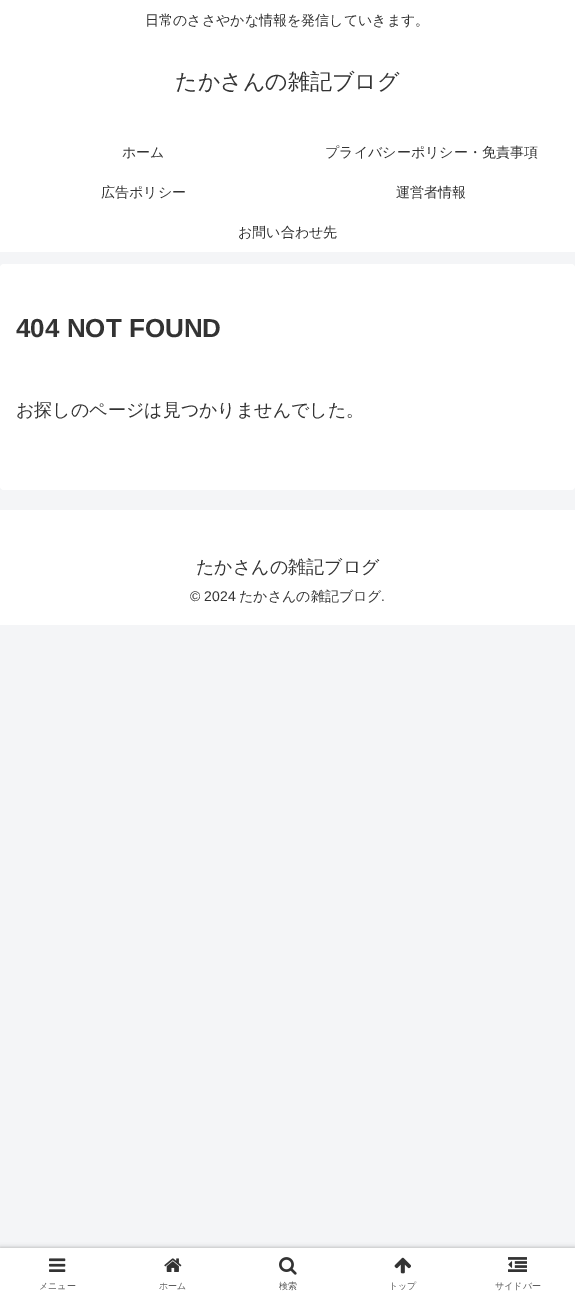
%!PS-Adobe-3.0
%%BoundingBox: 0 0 575 1298
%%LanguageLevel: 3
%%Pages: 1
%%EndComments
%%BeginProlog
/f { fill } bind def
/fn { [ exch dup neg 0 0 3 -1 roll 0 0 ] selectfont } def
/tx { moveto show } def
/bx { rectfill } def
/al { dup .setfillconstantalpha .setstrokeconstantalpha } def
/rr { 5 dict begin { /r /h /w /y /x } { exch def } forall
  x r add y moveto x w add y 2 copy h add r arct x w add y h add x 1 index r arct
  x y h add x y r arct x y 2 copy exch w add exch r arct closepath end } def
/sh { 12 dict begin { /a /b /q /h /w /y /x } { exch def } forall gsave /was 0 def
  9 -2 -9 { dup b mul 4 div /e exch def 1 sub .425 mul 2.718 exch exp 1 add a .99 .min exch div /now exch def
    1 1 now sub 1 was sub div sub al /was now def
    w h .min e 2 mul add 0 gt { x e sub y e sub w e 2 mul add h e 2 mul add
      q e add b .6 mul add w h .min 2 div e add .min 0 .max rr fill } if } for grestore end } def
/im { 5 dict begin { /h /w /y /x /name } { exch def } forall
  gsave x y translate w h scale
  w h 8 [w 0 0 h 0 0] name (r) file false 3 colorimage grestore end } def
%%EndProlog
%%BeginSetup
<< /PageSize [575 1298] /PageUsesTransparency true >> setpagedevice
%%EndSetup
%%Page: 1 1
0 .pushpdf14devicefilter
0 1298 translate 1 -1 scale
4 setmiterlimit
0.957 0.961 0.969 setrgbcolor
0 0 575 1298 bx
1 setgray
0 0 575 252 bx
/WenQuanYiZenHei-Medium 14 fn
0.2 setgray
(日常のささやかな情報を発信していきます。) 145 25 tx
/WenQuanYiZenHei-Medium 22 fn
(たかさんの雑記ブログ) 175 89 tx
/WenQuanYiZenHei-Medium 14 fn
(ホーム) 122 157 tx
(プライバシーポリシー・免責事項) 325 157 tx
(広告ポリシー) 101 197 tx
(運営者情報) 396 197 tx
(お問い合わせ先) 238 237 tx
1 setgray
0 264 575 226 4 rr f
/LiberationSans-Bold 26 fn
0.2 setgray
(404 NOT FOUND) 16 337 tx
/WenQuanYiZenHei-Medium 18 fn
(お探しのページは見つかりませんでした。) 16 416 tx
1 setgray
0 510 575 115 bx
0.2 setgray
(たかさんの雑記ブログ) 196 573 tx
/LiberationSans-Regular 14 fn
(© 2024) 190 601 tx
/WenQuanYiZenHei-Medium 14 fn
(たかさんの雑記ブログ) 239 601 tx
/LiberationSans-Regular 14 fn
(.) 381 601 tx
0.663 setgray
0 1248 575 50 0 2.5 1 sh
1 setgray
0 1248 575 50 bx
(image0.raw) 49 1258 17 14 im
/WenQuanYiZenHei-Medium 9 fn
0.361 setgray
(メニュー) 39 1289 tx
(image1.raw) 164 1258 18 14 im
(ホーム) 159 1289 tx
(image2.raw) 279 1257 18 18 im
(検索) 279 1289 tx
(image3.raw) 394 1257 17 17 im
(トップ) 389 1289 tx
(image4.raw) 508 1257 19 15 im
(サイドバー) 495 1289 tx
.poppdf14devicefilter showpage
%%EOF
